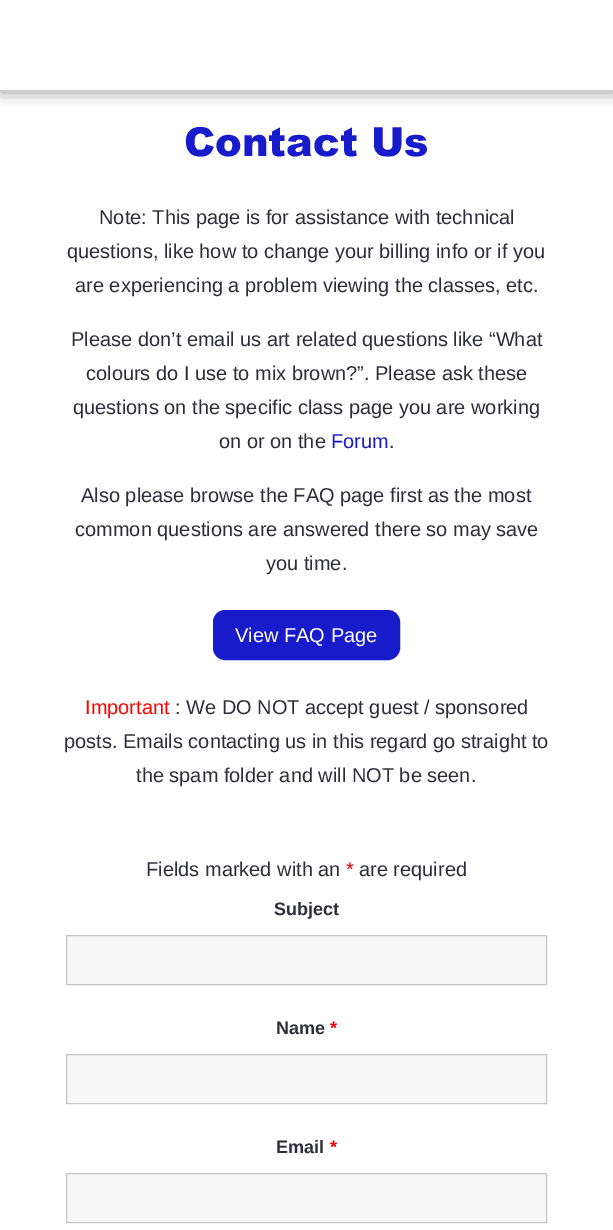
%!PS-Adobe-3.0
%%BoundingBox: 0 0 613 1230
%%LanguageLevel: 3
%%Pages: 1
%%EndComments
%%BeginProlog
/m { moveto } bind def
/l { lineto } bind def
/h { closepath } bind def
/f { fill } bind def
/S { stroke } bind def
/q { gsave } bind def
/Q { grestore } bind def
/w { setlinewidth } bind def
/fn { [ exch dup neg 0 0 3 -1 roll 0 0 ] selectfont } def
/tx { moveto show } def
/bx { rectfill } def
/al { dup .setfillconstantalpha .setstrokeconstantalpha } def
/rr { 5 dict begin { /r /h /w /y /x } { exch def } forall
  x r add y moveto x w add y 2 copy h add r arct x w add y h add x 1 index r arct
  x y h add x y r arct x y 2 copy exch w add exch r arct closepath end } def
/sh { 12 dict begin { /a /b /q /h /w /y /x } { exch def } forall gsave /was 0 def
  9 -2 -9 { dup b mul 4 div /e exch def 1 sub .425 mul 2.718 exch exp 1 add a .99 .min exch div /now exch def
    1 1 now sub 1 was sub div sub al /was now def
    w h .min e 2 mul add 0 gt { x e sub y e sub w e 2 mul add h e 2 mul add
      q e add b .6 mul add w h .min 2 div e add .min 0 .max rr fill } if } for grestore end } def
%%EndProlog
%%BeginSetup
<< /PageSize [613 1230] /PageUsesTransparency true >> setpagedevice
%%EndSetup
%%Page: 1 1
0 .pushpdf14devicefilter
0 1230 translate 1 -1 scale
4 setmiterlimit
1 setgray
0 0 613 1230 bx
q
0 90 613 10 rectclip
0 setgray
0 2 613 90 0 9 0.1 sh
Q
q
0 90 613 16 rectclip
0 setgray
0 2 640 90 0 9 0.3 sh
Q
/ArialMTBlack-Black 40 fn
0.09 0.106 0.792 setrgbcolor
(Contact Us) 184 156 tx
/LiberationSans-Regular 20 fn
0.18 0.18 0.227 setrgbcolor
(Note: This page is for assistance with technical) 99 224 tx
(questions, like how to change your billing info or if you) 67 258 tx
(are experiencing a problem viewing the classes, etc.) 75 292 tx
(Please don’t email us art related questions like “What) 71 346 tx
(colours do I use to mix brown?”. Please ask these) 86 380 tx
(questions on the specific class page you are working) 73 414 tx
(on or on the) 219 448 tx
0.09 0.106 0.792 setrgbcolor
(Forum) 331 448 tx
0.18 0.18 0.227 setrgbcolor
(.) 389 448 tx
(Also please browse the FAQ page first as the most) 81 502 tx
(common questions are answered there so may save) 75 536 tx
(you time.) 266 570 tx
0.09 0.106 0.792 setrgbcolor
214 611 185 48 11 rr q f Q
2 w
S
1 setgray
(View FAQ Page) 235 642 tx
1 0 0 setrgbcolor
(Important) 85 714 tx
0.18 0.18 0.227 setrgbcolor
(: We DO NOT accept guest / sponsored) 175 714 tx
(posts. Emails contacting us in this regard go straight to) 64 748 tx
(the spam folder and will NOT be seen.) 136 782 tx
(Fields marked with an) 146 876 tx
0.91 0 0 setrgbcolor
(*) 346 876 tx
0.18 0.18 0.227 setrgbcolor
(are required) 359 876 tx
/LiberationSans-Bold 18 fn
(Subject) 274 915 tx
0.969 setgray
66.5 935.5 m 546.5 935.5 l 546.5 984.5 l 66.5 984.5 l h q f Q
0.769 setgray
1 w
S
0.18 0.18 0.227 setrgbcolor
(Name) 276 1034 tx
0.91 0 0 setrgbcolor
(*) 330 1034 tx
0.969 setgray
66.5 1054.5 m 546.5 1054.5 l 546.5 1103.5 l 66.5 1103.5 l h q f Q
0.769 setgray
S
0.18 0.18 0.227 setrgbcolor
(Email) 276 1153 tx
0.91 0 0 setrgbcolor
(*) 330 1153 tx
0.969 setgray
66.5 1173.5 m 546.5 1173.5 l 546.5 1222.5 l 66.5 1222.5 l h q f Q
0.769 setgray
S
.poppdf14devicefilter showpage
%%EOF
